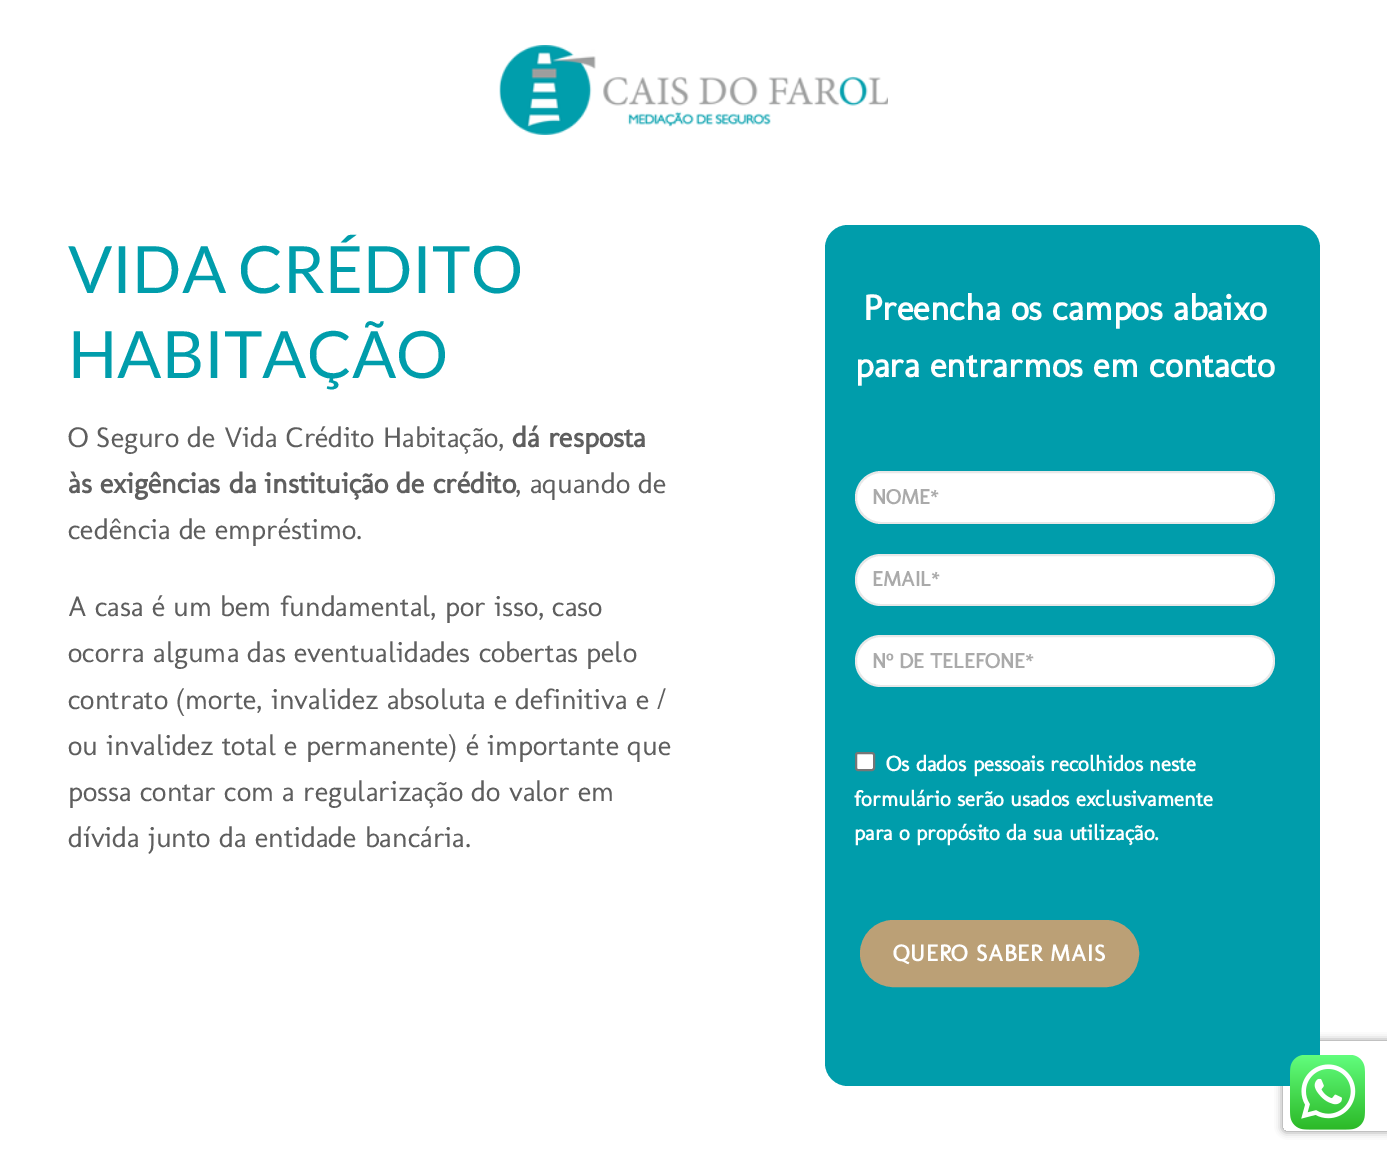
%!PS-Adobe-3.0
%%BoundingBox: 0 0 1387 1151
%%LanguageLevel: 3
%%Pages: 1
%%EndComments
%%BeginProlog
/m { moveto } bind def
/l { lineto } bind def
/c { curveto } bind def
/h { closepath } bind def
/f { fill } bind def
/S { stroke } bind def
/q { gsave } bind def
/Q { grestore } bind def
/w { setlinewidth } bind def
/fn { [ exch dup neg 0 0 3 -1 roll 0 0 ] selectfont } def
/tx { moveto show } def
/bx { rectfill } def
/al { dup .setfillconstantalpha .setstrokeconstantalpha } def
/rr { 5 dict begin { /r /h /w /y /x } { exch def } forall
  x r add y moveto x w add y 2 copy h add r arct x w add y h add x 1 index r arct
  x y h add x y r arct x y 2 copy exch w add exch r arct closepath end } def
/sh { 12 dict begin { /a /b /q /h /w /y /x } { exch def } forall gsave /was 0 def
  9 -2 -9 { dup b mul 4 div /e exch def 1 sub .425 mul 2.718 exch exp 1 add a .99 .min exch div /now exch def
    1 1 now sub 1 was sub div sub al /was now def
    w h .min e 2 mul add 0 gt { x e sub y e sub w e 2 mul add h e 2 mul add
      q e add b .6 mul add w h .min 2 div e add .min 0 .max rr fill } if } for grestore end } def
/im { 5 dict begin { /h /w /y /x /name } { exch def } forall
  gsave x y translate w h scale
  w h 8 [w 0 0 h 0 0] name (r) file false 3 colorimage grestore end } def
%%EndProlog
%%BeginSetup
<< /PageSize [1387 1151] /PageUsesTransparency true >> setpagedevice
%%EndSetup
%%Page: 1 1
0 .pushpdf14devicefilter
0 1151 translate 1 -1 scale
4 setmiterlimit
1 setgray
0 0 1387 1151 bx
(image0.raw) 499 45 389 90 im
/Lato-Regular 65.25 fn
0 0.616 0.671 setrgbcolor
(VIDA CRÉDITO) 68 293 tx
(HABITAÇÃO) 68 378 tx
/Molengo-Regular 28.8 fn
0.369 setgray
(O Seguro de Vida Crédito Habitação,) 68 447 tx
/Molengo-Bold 28.8 fn
(dá resposta) 512 447 tx
(às exigências da instituição de crédito) 68 493 tx
/Molengo-Regular 28.8 fn
(, aquando de) 515 493 tx
(cedência de empréstimo.) 68 539 tx
(A casa é um bem fundamental, por isso, caso) 68 616 tx
(ocorra alguma das eventualidades cobertas pelo) 68 662 tx
(contrato \(morte, invalidez absoluta e definitiva e /) 68 709 tx
(ou invalidez total e permanente\) é importante que) 68 755 tx
(possa contar com a regularização do valor em) 68 801 tx
(dívida junto da entidade bancária.) 68 847 tx
q
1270 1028 m 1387 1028 l 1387 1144 l 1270 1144 l h 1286 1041 m 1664 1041 l 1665.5 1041 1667 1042.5 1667 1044 c 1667 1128 l 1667 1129.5 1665.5 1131 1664 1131 c 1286 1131 l 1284.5 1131 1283 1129.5 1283 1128 c 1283 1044 l 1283 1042.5 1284.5 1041 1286 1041 c h eoclip newpath
0.502 setgray
1283 1041 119 90 3 4 1 sh
Q
0 0.616 0.671 setrgbcolor
825 225 495 861 23 rr f
/Molengo-Bold 36 fn
1 setgray
(Preencha os campos abaixo) 863 320 tx
(para entrarmos em contacto) 855 377 tx
855 471 420 53 26.5 rr f
0.09 al
0 setgray
2 w
856 472 418 51 25.5 rr S
/Molengo-Bold 21 fn
1 al
0.667 setgray
(NOME*) 872 504 tx
1 setgray
855 554 420 52 26 rr f
0.09 al
0 setgray
856 555 418 50 25 rr S
1 al
0.667 setgray
(EMAIL*) 872 586 tx
1 setgray
855 635 420 52 26 rr f
0.09 al
0 setgray
856 636 418 50 25 rr S
1 al
0.667 setgray
(N) 872 668 tx
/LiberationSans-Bold 21 fn
(º) 886 668 tx
/Molengo-Bold 21 fn
(DE TELEFONE*) 899 668 tx
1 setgray
856 753 18 17 2 rr q f Q
0.463 setgray
S
/Molengo-Bold 21.6 fn
1 setgray
(Os dados pessoais recolhidos neste) 886 771 tx
(formulário serão usados exclusivamente) 854 806 tx
(para o propósito da sua utilização.) 854 840 tx
0.733 0.627 0.463 setrgbcolor
863 923 273 61 30.5 rr q f Q
6 w
S
/Molengo-Bold 23.25 fn
1 setgray
893 961 m 0.75 0 (QUERO SABER MAIS) ashow
(image1.raw) 1290 1055 75 75 im
.poppdf14devicefilter showpage
%%EOF
